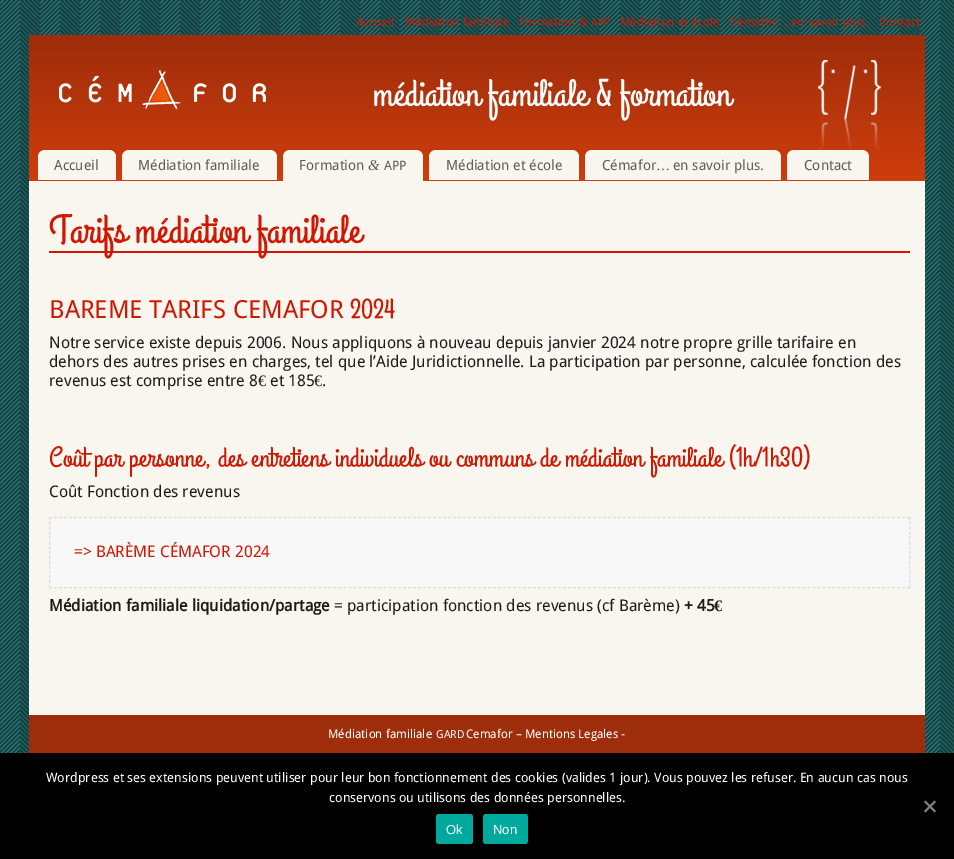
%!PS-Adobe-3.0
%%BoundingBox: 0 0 954 859
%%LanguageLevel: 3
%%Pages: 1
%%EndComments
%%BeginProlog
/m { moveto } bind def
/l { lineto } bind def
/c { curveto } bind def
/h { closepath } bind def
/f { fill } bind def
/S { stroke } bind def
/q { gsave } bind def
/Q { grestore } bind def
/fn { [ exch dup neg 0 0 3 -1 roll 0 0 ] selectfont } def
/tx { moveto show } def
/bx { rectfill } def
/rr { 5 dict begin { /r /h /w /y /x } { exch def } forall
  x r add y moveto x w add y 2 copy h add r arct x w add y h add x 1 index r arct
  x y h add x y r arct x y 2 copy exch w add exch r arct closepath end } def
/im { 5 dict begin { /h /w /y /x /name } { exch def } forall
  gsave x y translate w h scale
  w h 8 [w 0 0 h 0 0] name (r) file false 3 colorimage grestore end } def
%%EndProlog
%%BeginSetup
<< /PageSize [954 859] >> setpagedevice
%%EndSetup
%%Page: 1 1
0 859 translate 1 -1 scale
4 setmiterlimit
1 setgray
0 0 954 859 bx
(image0.raw) 0 0 954 753 im
/DroidSans-Regular 12 fn
0.816 0.09 0.008 setrgbcolor
(Accueil) 356 26 tx
(Médiation familiale) 405 26 tx
(Formation) 519 26 tx
/LiberationSerif-Italic 13 fn
(&) 578 26 tx
/DroidSans-Regular 11 fn
(APP) 591 26 tx
/DroidSans-Regular 12 fn
(Médiation et école) 620 26 tx
(Cémafor) 730 26 tx
/LiberationSerif-Regular 12 fn
(…) 776 26 tx
/DroidSans-Regular 12 fn
(en savoir plus.) 791 26 tx
(Contact) 879 26 tx
q 29 35 m 925 35 l 925 181 l 29 181 l h clip newpath
<< /ShadingType 2 /ColorSpace /DeviceRGB /Coords [477 35 477 181] /Extend [true true] /Function << /FunctionType 2 /Domain [0 1] /C0 [0.616 0.176 0.043] /C1 [0.812 0.239 0.047] /N 1 >> >> shfill Q
(image1.raw) 59 70 207 40 im
/GrandHotel-Regular 38 fn
1 setgray
(médiation familiale & formation) 373 105 tx
(image2.raw) 818 60 63 90 im
0.976 0.965 0.937 setrgbcolor
45 150 m 109 150 l 113 150 116 153 116 157 c 116 180 l 38 180 l 38 157 l 38 153 41 150 45 150 c h f
/DroidSans-Regular 14 fn
0.373 0.357 0.357 setrgbcolor
(Accueil) 54 170 tx
0.976 0.965 0.937 setrgbcolor
129 150 m 270 150 l 274 150 277 153 277 157 c 277 180 l 122 180 l 122 157 l 122 153 125 150 129 150 c h f
0.373 0.357 0.357 setrgbcolor
(Médiation familiale) 138 170 tx
0.976 0.965 0.937 setrgbcolor
290 150 m 416 150 l 420 150 423 153 423 157 c 423 181 l 283 181 l 283 157 l 283 153 286 150 290 150 c h f
0.373 0.357 0.357 setrgbcolor
(Formation) 299 170 tx
/LiberationSerif-Italic 15 fn
(&) 368 170 tx
/DroidSans-Regular 13 fn
(APP) 384 170 tx
0.976 0.965 0.937 setrgbcolor
436 150 m 572 150 l 576 150 579 153 579 157 c 579 180 l 429 180 l 429 157 l 429 153 432 150 436 150 c h f
/DroidSans-Regular 14 fn
0.373 0.357 0.357 setrgbcolor
(Médiation et école) 446 170 tx
0.976 0.965 0.937 setrgbcolor
592 150 m 774 150 l 778 150 781 153 781 157 c 781 180 l 585 180 l 585 157 l 585 153 588 150 592 150 c h f
0.373 0.357 0.357 setrgbcolor
(Cémafor) 602 170 tx
/LiberationSerif-Regular 14 fn
(…) 656 170 tx
/DroidSans-Regular 14 fn
(en savoir plus.) 673 170 tx
0.976 0.965 0.937 setrgbcolor
794 150 m 862 150 l 866 150 869 153 869 157 c 869 180 l 787 180 l 787 157 l 787 153 790 150 794 150 c h f
0.373 0.357 0.357 setrgbcolor
(Contact) 804 170 tx
0.976 0.965 0.937 setrgbcolor
29 181 896 534 bx
0.816 0.09 0.008 setrgbcolor
49 251 861 2 bx
/GrandHotel-Regular 40 fn
(Tarifs médiation familiale) 49 242 tx
/DroidSans-Regular 25 fn
(BAREME) 49 318 tx
(TARIFS) 149 318 tx
(CEMAFOR) 233 318 tx
/GrandHotel-Regular 28 fn
(2024) 350 318 tx
/DroidSans-Regular 16 fn
0.106 setgray
(Notre service existe depuis 2006. Nous appliquons à nouveau depuis janvier 2024 notre propre grille tarifaire en) 49 348 tx
(dehors des autres prises en charges, tel que l’Aide Juridictionnelle. La participation par personne, calculée fonction des) 49 367 tx
(revenus est comprise entre 8) 49 386 tx
/LiberationSerif-Regular 16 fn
(€) 258 386 tx
/DroidSans-Regular 16 fn
(et 185) 270 386 tx
/LiberationSerif-Regular 16 fn
(€) 314 386 tx
/DroidSans-Regular 16 fn
(.) 322 386 tx
/GrandHotel-Regular 28 fn
0.816 0.09 0.008 setrgbcolor
(Coût par personne, des entretiens individuels ou communs de médiation familiale \(1h/1h30\)) 49 466 tx
/DroidSans-Regular 16 fn
0.106 setgray
(Coût Fonction des revenus) 49 497 tx
0.973 setgray
49 517 861 71 bx
0.867 setgray
[3 1.99] 0 setdash
49 517.5 m 910 517.5 l S
[3 1.86] 0 setdash
909.5 517 m 909.5 588 l S
[3 1.99] 0 setdash
49 587.5 m 910 587.5 l S
[3 1.86] 0 setdash
49.5 517 m 49.5 588 l S
0.816 0.09 0.008 setrgbcolor
(=> BARÈME CÉMAFOR 2024) 74 557 tx
/DroidSans-Bold 16 fn
0.106 setgray
(Médiation familiale liquidation/partage) 49 611 tx
/DroidSans-Regular 16 fn
(= participation fonction des revenus \(cf Barème\)) 334 611 tx
/DroidSans-Bold 16 fn
(+ 45) 684 611 tx
/LiberationSerif-Bold 16 fn
(€) 714 611 tx
0.616 0.176 0.043 setrgbcolor
29 715 896 38 bx
/DroidSans-Regular 12 fn
1 setgray
(Médiation familiale) 328 738 tx
/DroidSans-Regular 11 fn
(GARD) 436 738 tx
/DroidSans-Regular 12 fn
(Cemafor – Mentions Legales -) 466 738 tx
0 setgray
0 753 954 106 bx
/DroidSans-Regular 13 fn
1 setgray
(Wordpress et ses extensions peuvent utiliser pour leur bon fonctionnement des cookies \(valides 1 jour\). Vous pouvez les refuser. En aucun cas nous) 46 782 tx
(conservons ou utilisons des données personnelles.) 329 802 tx
0.502 setgray
934.5 800.5 m 936 802 l 925.5 812.5 l 924 811 l h f
924 802 m 925.5 800.5 l 936 811 l 934.5 812.5 l h f
0 0.663 0.616 setrgbcolor
436 814 37 30 3 rr f
/LiberationSans-Regular 13 fn
1 setgray
(Ok) 446 834 tx
0 0.663 0.616 setrgbcolor
483 814 45 30 3 rr f
1 setgray
(Non) 493 834 tx
showpage
%%EOF
